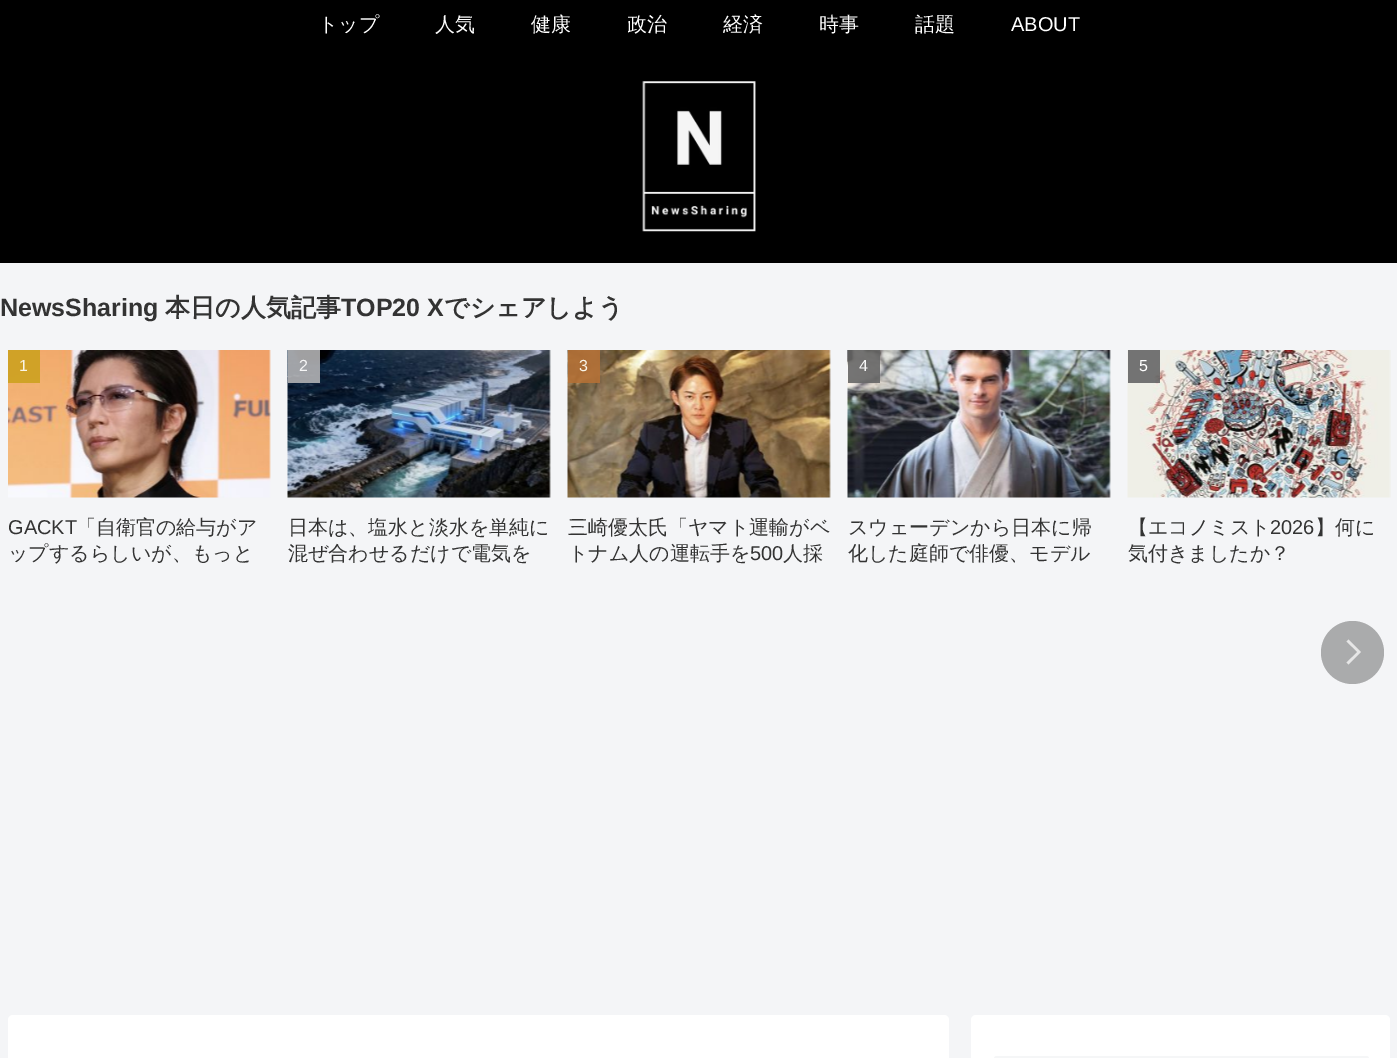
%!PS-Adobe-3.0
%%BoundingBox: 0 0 1397 1058
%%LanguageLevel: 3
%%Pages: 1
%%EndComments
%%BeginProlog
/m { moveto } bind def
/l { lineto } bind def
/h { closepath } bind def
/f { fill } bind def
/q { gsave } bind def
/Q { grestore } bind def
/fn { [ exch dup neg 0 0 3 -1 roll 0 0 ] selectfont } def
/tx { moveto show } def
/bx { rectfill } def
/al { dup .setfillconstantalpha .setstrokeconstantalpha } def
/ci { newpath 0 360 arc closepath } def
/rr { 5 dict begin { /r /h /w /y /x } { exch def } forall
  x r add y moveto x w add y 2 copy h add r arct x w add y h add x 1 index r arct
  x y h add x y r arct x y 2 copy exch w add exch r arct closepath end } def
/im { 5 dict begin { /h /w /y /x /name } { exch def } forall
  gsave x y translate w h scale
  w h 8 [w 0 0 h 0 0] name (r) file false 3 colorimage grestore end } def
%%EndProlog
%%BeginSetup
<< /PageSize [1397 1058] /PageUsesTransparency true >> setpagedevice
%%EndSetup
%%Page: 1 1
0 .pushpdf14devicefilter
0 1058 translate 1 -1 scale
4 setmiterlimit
0.957 0.961 0.969 setrgbcolor
0 0 1397 1058 bx
0 setgray
0 0 1397 263 bx
/WenQuanYiZenHei-Medium 20 fn
1 setgray
(トップ) 318 31 tx
(人気) 435 31 tx
(健康) 531 31 tx
q
628 8 40 35 rectclip
(政治) 627 31 tx
Q
(経済) 723 31 tx
(時事) 819 31 tx
(話題) 915 31 tx
/LiberationSans-Regular 20 fn
(ABOUT) 1011 31 tx
(image0.raw) 642 81 114 151 im
/LiberationSans-Bold 25 fn
0.2 setgray
(NewsSharing) 0 316 tx
/WenQuanYiZenHei-Bold 25 fn
(本日の人気記事) 165 316 tx
/LiberationSans-Bold 25 fn
(TOP20 X) 341 316 tx
/WenQuanYiZenHei-Bold 25 fn
(でシェアしよう) 444 316 tx
(image1.raw) 8 350 263 148 im
0.9 al
0.8 0.631 0.122 setrgbcolor
8 350 32 33 bx
/LiberationSans-Regular 16 fn
1 al
0.98 0.965 0.914 setrgbcolor
(1) 19 371 tx
/LiberationSans-Regular 20 fn
0.2 setgray
(GACKT) 8 534 tx
/WenQuanYiZenHei-Medium 20 fn
(「自衛官の給与がア) 76 534 tx
(ップするらしいが、もっと) 8 560 tx
(image2.raw) 287 350 264 148 im
0.9 al
0.694 0.694 0.702 setrgbcolor
288 350 32 33 bx
/LiberationSans-Regular 16 fn
1 al
0.965 setgray
(2) 299 371 tx
/WenQuanYiZenHei-Medium 20 fn
0.2 setgray
(日本は、塩水と淡水を単純に) 288 534 tx
(混ぜ合わせるだけで電気を) 288 560 tx
(image3.raw) 567 350 264 148 im
0.9 al
0.702 0.439 0.212 setrgbcolor
568 350 32 33 bx
/LiberationSans-Regular 16 fn
1 al
0.98 0.965 0.914 setrgbcolor
(3) 579 371 tx
/WenQuanYiZenHei-Medium 20 fn
0.2 setgray
(三崎優太氏「ヤマト運輸がベ) 568 534 tx
(トナム人の運転手を) 568 560 tx
/LiberationSans-Regular 20 fn
(500) 750 560 tx
/WenQuanYiZenHei-Medium 20 fn
(人採) 783 560 tx
(image4.raw) 847 350 264 148 im
0.9 al
0.4 setgray
848 350 32 33 bx
/LiberationSans-Regular 16 fn
1 al
0.965 setgray
(4) 859 371 tx
/WenQuanYiZenHei-Medium 20 fn
0.2 setgray
(スウェーデンから日本に帰) 848 534 tx
(化した庭師で俳優、モデル) 848 560 tx
(image5.raw) 1127 350 264 148 im
0.9 al
0.4 setgray
1128 350 32 33 bx
/LiberationSans-Regular 16 fn
1 al
1 setgray
(5) 1139 371 tx
/WenQuanYiZenHei-Medium 20 fn
0.2 setgray
(【エコノミスト) 1128 534 tx
/LiberationSans-Regular 20 fn
(2026) 1270 534 tx
/WenQuanYiZenHei-Medium 20 fn
(】何に) 1315 534 tx
(気付きましたか？) 1128 560 tx
0.3 al
0 setgray
1352.5 652.5 31.5 ci f
1 al
0.902 setgray
1348.5 639.5 m 1361 652 l 1357.5 652 l 1346.5 641.5 l h 1361 652 m 1348.5 664.5 l 1346.5 662.5 l 1357.5 652 l h f
1 setgray
8 1015 941 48 5 rr f
971 1015 419 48 5 rr f
0.961 0.965 0.969 setrgbcolor
994 1056 375 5 2.5 rr f
.poppdf14devicefilter showpage
%%EOF
